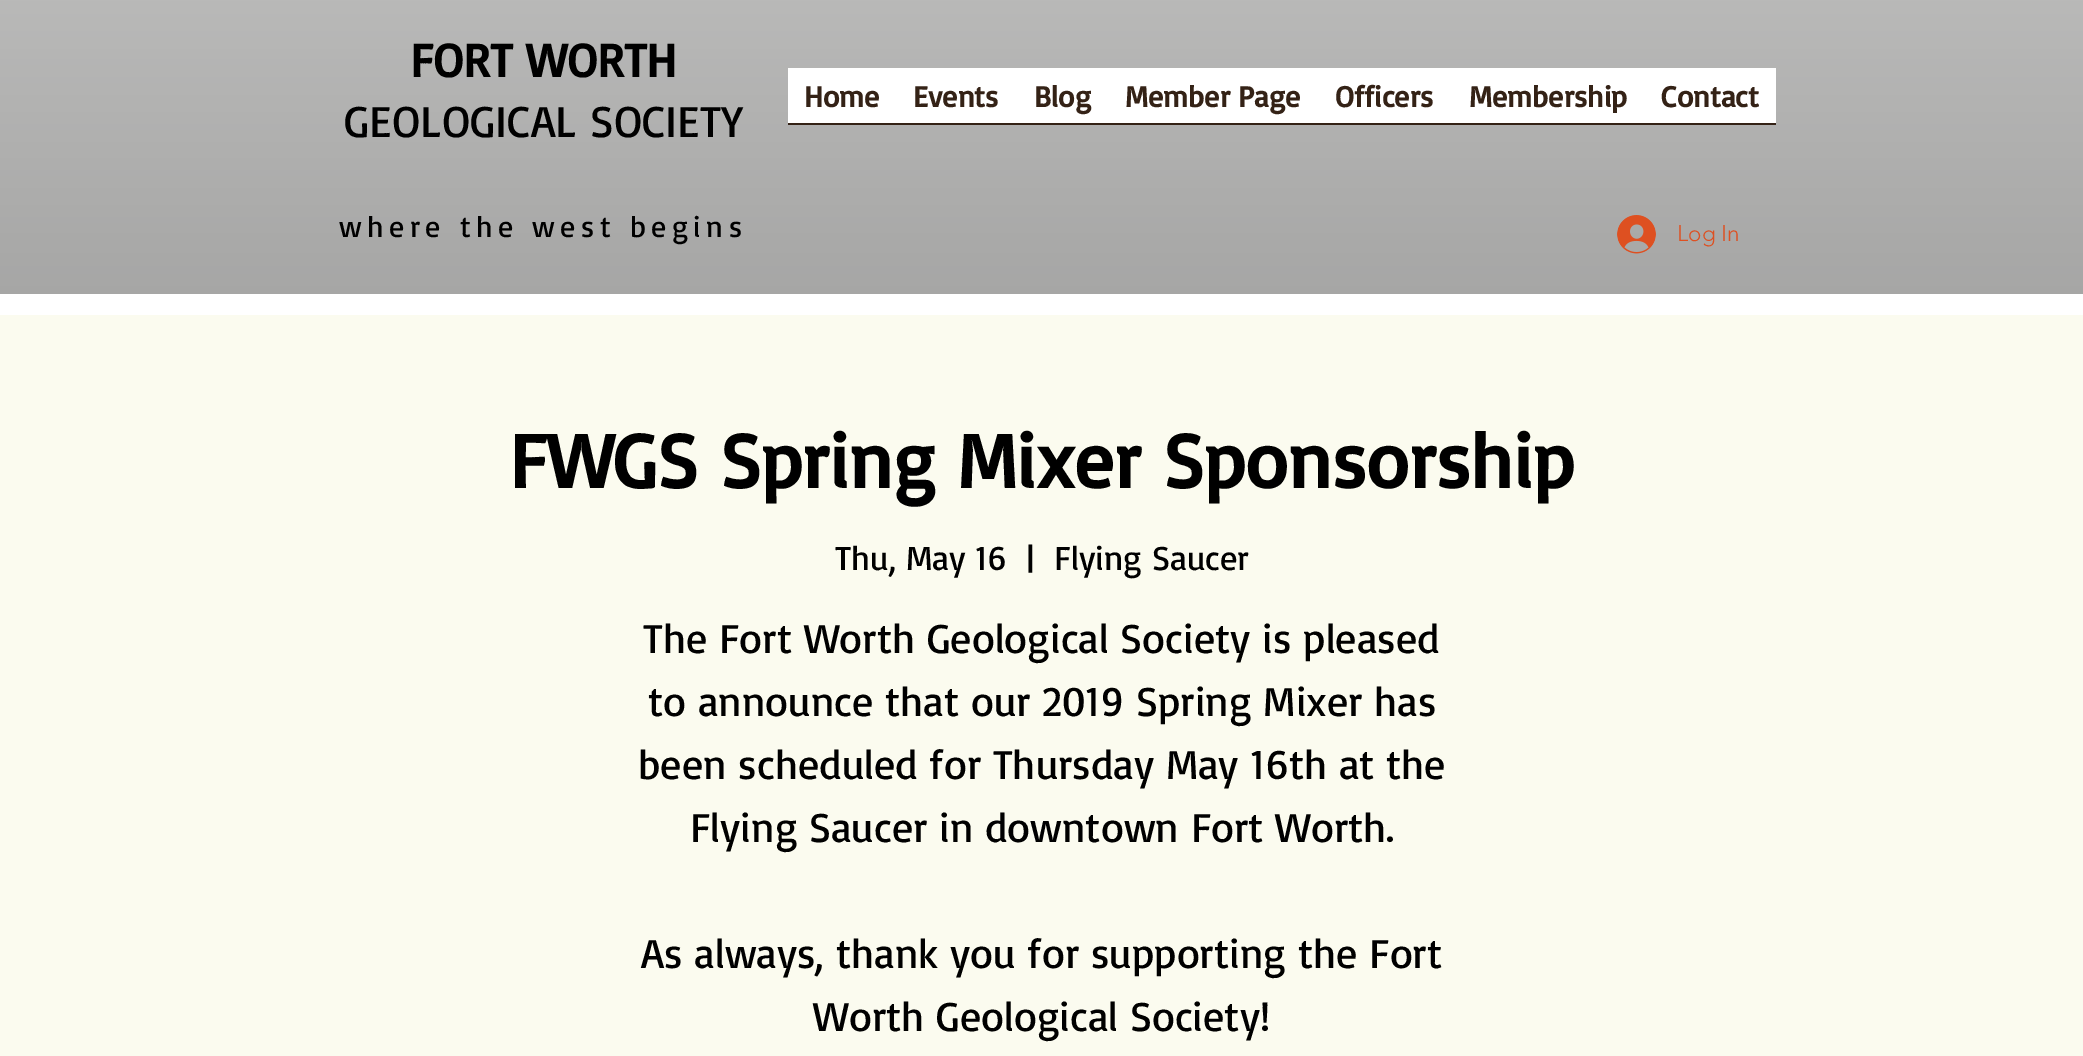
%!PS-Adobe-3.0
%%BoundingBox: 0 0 2083 1056
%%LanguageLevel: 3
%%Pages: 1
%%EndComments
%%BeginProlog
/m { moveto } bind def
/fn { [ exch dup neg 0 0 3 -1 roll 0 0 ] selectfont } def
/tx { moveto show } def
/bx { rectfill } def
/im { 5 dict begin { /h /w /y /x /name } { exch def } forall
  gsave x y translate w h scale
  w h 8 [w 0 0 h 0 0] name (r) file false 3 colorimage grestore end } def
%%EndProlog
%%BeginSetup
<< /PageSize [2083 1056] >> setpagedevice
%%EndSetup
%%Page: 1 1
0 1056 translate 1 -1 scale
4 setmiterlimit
1 setgray
0 0 2083 1056 bx
0.627 0.627 0.624 setrgbcolor
0 0 2083 294 bx
(image0.raw) 0 0 2083 294 im
/Basic-Bold 48 fn
0 setgray
(FORT WORTH) 410 77 tx
1 setgray
788 68 988 55 bx
0.204 0.133 0.086 setrgbcolor
788 123 988 2 bx
/Basic-Bold 30 fn
(Home) 804 107 tx
(Events) 913 107 tx
(Blog) 1034 107 tx
(Member Page) 1125 107 tx
(Officers) 1335 107 tx
(Membership) 1469 107 tx
(Contact) 1661 107 tx
/Basic-Regular 45 fn
0 setgray
(GEOLOGICAL SOCIETY) 344 137 tx
/Basic-Regular 30 fn
339 237 m 5.4 0 (where the west begins) ashow
(image1.raw) 1617 215 39 39 im
/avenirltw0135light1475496-Light 22.5 fn
0.871 0.314 0.129 setrgbcolor
(Log In) 1677 241 tx
0.984 0.984 0.937 setrgbcolor
0 315 2083 741 bx
/Basic-Bold 78 fn
0 setgray
(FWGS Spring Mixer Sponsorship) 509 488 tx
/Basic-Regular 34.5 fn
(Thu, May 16) 835 570 tx
(|) 1026 570 tx
(Flying Saucer) 1054 570 tx
/Basic-Regular 42 fn
(The Fort Worth Geological Society is pleased) 643 653 tx
(to announce that our 2019 Spring Mixer has) 648 716 tx
(been scheduled for Thursday May 16th at the) 638 779 tx
(Flying Saucer in downtown Fort Worth.) 690 842 tx
(As always, thank you for supporting the Fort) 641 968 tx
(Worth Geological Society!) 813 1031 tx
showpage
%%EOF
